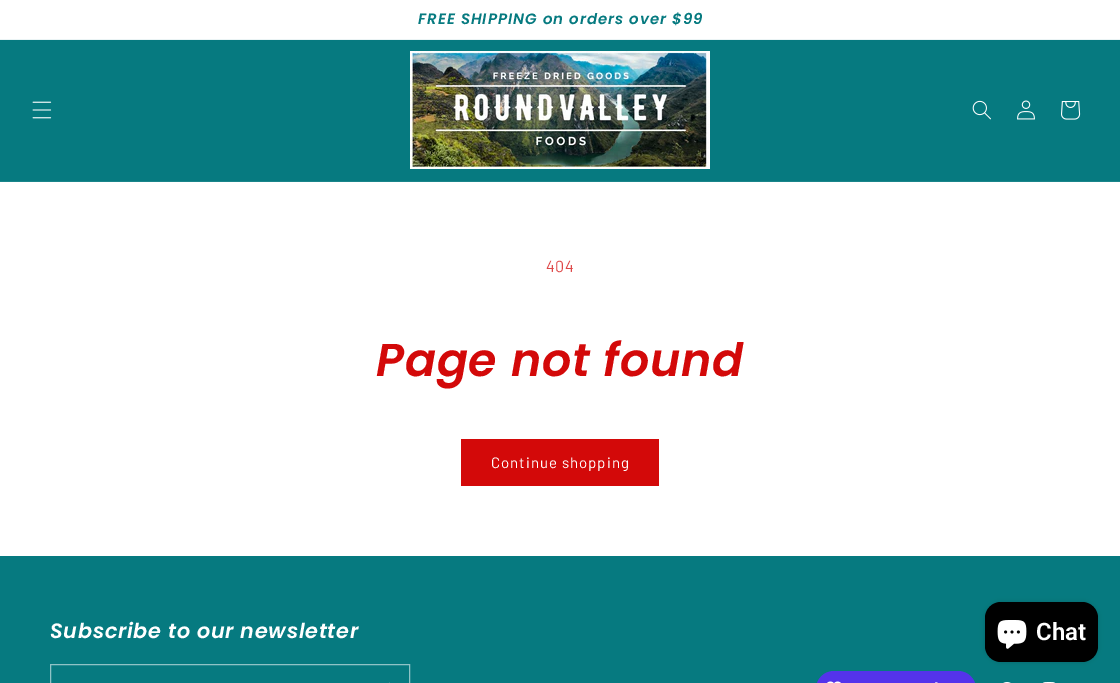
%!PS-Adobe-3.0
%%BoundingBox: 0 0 1120 683
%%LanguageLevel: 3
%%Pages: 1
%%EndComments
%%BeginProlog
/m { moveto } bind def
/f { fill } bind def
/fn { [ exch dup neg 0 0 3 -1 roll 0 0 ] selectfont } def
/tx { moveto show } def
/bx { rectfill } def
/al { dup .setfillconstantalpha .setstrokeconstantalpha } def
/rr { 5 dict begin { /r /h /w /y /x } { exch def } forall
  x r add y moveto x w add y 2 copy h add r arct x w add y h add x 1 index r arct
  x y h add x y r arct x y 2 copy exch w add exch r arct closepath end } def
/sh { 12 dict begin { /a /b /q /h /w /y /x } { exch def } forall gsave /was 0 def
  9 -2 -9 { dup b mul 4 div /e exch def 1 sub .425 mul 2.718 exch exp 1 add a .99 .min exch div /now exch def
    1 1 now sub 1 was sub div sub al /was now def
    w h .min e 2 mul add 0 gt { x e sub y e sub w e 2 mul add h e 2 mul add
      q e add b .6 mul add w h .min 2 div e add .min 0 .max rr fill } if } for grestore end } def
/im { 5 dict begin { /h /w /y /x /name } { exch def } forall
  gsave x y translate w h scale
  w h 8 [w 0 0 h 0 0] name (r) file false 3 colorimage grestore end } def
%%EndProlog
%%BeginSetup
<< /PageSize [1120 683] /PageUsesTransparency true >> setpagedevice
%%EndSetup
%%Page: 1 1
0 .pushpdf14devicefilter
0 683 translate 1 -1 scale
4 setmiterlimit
1 setgray
0 0 1120 683 bx
0.922 0.957 0.961 setrgbcolor
0 39 1120 1 bx
/Poppins-SemiBoldItalic 15 fn
0.024 0.478 0.502 setrgbcolor
418 24 m 1 0 (FREE SHIPPING on orders over $99) ashow
0 40 1120 141 bx
0.102 0.522 0.541 setrgbcolor
0 181 1120 1 bx
(image0.raw) 32 101 20 18 im
(image1.raw) 410 51 300 118 im
(image2.raw) 972 100 19 20 im
(image3.raw) 1017 100 18 20 im
(image4.raw) 1061 101 20 19 im
/Barlow-Regular 16 fn
0.871 0.278 0.278 setrgbcolor
546 272 m 0.5 0 (404) ashow
/Poppins-SemiBoldItalic 46 fn
0.827 0.035 0.035 setrgbcolor
376 376 m 0.7 0 (Page not found) ashow
461 439 198 47 bx
/Barlow-Regular 15 fn
1 setgray
491 468 m 1 0 (Continue shopping) ashow
0.024 0.478 0.502 setrgbcolor
0 556 1120 127 bx
/Poppins-SemiBoldItalic 20.75 fn
1 setgray
50 638 m 0.7 0 (Subscribe to our newsletter) ashow
0.561 0.765 0.776 setrgbcolor
50.5 664.5 359 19 rectstroke
0.149 0.545 0.569 setrgbcolor
389 682 1 1 bx
0.329 0.2 0.922 setrgbcolor
816 671 160 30 18 rr f
(image5.raw) 827 681 14 2 im
(image6.raw) 935 682 3 1 im
(image7.raw) 1003 682 8 1 im
(image8.raw) 1042 682 14 1 im
0 setgray
985 602 113 60 16 2.5 0.15 sh
985 602 113 60 16 rr f
(image9.raw) 997 620 30 29 im
/Roboto-SemiBold 24 fn
1 setgray
(Chat) 1036 640 tx
.poppdf14devicefilter showpage
%%EOF
